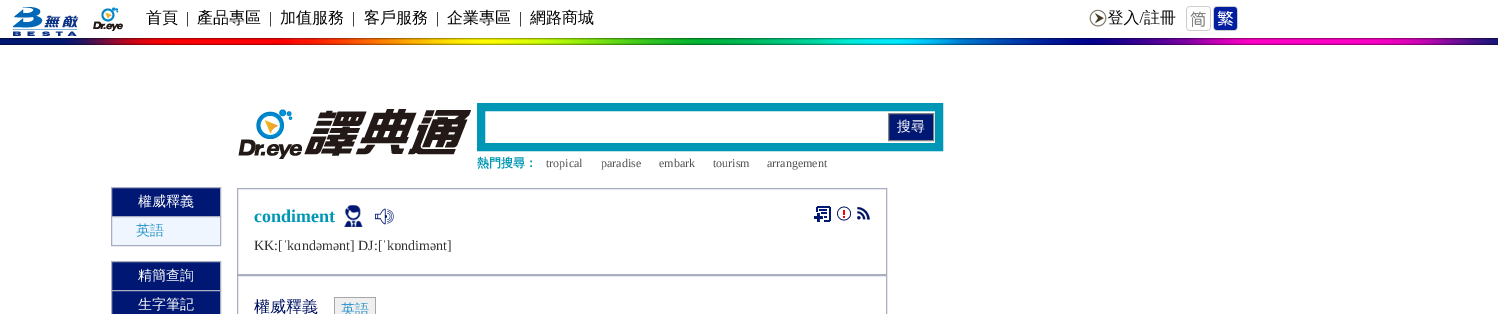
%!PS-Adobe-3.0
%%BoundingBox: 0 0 1498 314
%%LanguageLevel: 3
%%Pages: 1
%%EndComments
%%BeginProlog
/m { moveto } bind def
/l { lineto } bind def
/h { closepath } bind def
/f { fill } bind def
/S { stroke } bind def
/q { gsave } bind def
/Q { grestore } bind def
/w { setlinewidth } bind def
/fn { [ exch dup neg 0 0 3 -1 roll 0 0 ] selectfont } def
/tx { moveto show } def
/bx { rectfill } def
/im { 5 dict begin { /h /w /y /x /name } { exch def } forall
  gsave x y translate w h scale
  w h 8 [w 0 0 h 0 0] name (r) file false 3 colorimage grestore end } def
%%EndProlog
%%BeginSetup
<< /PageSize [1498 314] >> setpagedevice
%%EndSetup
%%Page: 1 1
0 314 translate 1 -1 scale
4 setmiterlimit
1 setgray
0 0 1498 314 bx
(image0.raw) 12 7 67 29 im
(image1.raw) 90 1 33 31 im
/WenQuanYiZenHei-Medium 16 fn
0 setgray
(首頁) 146 23 tx
/LiberationSerif-Regular 16 fn
(|) 186 23 tx
/WenQuanYiZenHei-Medium 16 fn
(產品專區) 197 23 tx
/LiberationSerif-Regular 16 fn
(|) 269 23 tx
/WenQuanYiZenHei-Medium 16 fn
(加值服務) 280 23 tx
/LiberationSerif-Regular 16 fn
(|) 352 23 tx
/WenQuanYiZenHei-Medium 16 fn
(客戶服務) 364 23 tx
/LiberationSerif-Regular 16 fn
(|) 436 23 tx
/WenQuanYiZenHei-Medium 16 fn
(企業專區) 447 23 tx
/LiberationSerif-Regular 16 fn
(|) 519 23 tx
/WenQuanYiZenHei-Medium 16 fn
(網路商城) 530 23 tx
(image2.raw) 1089 6 149 25 im
(image3.raw) 0 38 1498 7 im
(image4.raw) 238 109 233 50 im
0 0.592 0.714 setrgbcolor
8 w
481 107 458 40 rectstroke
0 0.094 0.455 setrgbcolor
888.5 113.5 m 933.5 113.5 l 933.5 140.5 l 888.5 140.5 l h q f Q
0.522 setgray
1 w
S
/WenQuanYiZenHei-Medium 14 fn
1 setgray
(搜尋) 897 131 tx
/WenQuanYiZenHei-Bold 12 fn
0 0.592 0.714 setrgbcolor
(熱門搜尋：) 477 167 tx
/LiberationSerif-Regular 12 fn
0.318 setgray
(tropical) 546 167 tx
(paradise) 601 167 tx
(embark) 659 167 tx
(tourism) 713 167 tx
(arrangement) 767 167 tx
0 0.094 0.455 setrgbcolor
111.5 187.5 m 220.5 187.5 l 220.5 216.5 l 111.5 216.5 l h q f Q
0.659 0.678 0.749 setrgbcolor
S
/WenQuanYiZenHei-Medium 14 fn
1 setgray
(權威釋義) 138 206 tx
0.937 0.965 1 setrgbcolor
111.5 216.5 m 220.5 216.5 l 220.5 245.5 l 111.5 245.5 l h q f Q
0.659 0.678 0.749 setrgbcolor
S
0.2 0.6 0.8 setrgbcolor
(英語) 136 235 tx
0 0.094 0.455 setrgbcolor
111.5 261.5 m 220.5 261.5 l 220.5 290.5 l 111.5 290.5 l h q f Q
0.659 0.678 0.749 setrgbcolor
S
1 setgray
(精簡查詢) 138 280 tx
0 0.094 0.455 setrgbcolor
111.5 290.5 m 220.5 290.5 l 220.5 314.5 l 111.5 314.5 l h q f Q
0.659 0.678 0.749 setrgbcolor
S
1 setgray
(生字筆記) 138 309 tx
0.659 0.678 0.749 setrgbcolor
237.5 188.5 649 86 rectstroke
/LiberationSerif-Bold 18 fn
0 0.592 0.714 setrgbcolor
(condiment) 254 222 tx
(image5.raw) 344 205 19 22 im
(image6.raw) 375 208 19 17 im
(image7.raw) 814 206 17 16 im
(image8.raw) 837 206 14 15 im
(image9.raw) 857 207 13 13 im
/LiberationSerif-Regular 14 fn
0.2 setgray
(KK:[ˈkɑndǝmǝnt] DJ:[ˈkɒndimǝnt]) 254 250 tx
0.659 0.678 0.749 setrgbcolor
237.5 275.5 649 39 rectstroke
/WenQuanYiZenHei-Medium 16 fn
0 0.075 0.388 setrgbcolor
(權威釋義) 254 312 tx
0.937 setgray
335 298 40 16 bx
0.655 setgray
334 297 42 1 bx
375 297 1 17 bx
334 297 1 17 bx
/WenQuanYiZenHei-Medium 14 fn
0.2 0.6 0.8 setrgbcolor
(英語) 341 314 tx
showpage
%%EOF
